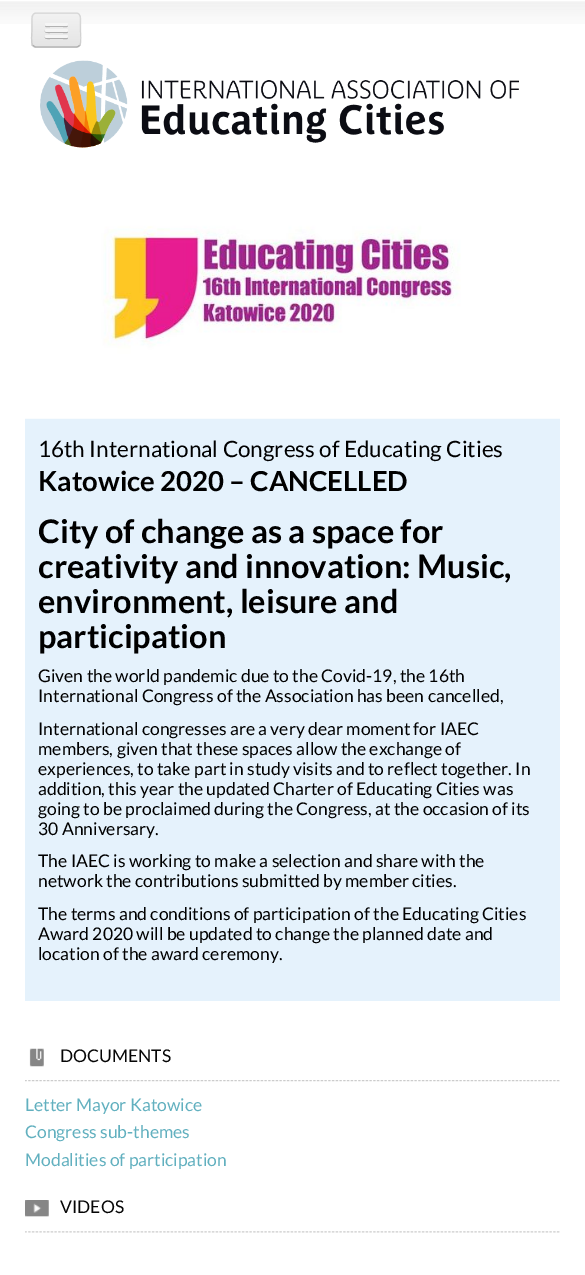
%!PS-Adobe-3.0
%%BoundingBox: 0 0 585 1275
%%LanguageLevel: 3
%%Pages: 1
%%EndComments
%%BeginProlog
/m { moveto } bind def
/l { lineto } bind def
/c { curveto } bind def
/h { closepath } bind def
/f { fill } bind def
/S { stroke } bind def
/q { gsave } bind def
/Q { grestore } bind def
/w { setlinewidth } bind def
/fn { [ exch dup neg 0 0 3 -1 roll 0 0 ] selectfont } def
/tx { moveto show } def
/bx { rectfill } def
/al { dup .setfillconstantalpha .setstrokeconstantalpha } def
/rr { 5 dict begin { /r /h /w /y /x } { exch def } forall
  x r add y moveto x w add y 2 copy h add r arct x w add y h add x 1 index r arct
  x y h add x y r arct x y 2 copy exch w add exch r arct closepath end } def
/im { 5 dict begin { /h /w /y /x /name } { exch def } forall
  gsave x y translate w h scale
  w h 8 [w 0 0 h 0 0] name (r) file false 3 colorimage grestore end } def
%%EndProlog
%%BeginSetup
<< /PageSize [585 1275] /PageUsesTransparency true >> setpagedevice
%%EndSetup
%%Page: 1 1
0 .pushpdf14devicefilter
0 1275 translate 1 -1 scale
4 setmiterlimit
1 setgray
0 0 585 1275 bx
(image0.raw) 0 1 585 23 im
0.929 setgray
31 13 50 35 5 rr f
q
31 13 50 35 5 rr clip newpath
q 31 14 m 81 14 l 81 46 l 31 46 l h clip newpath
<< /ShadingType 2 /ColorSpace /DeviceRGB /Coords [56 14 56 46] /Extend [true true] /Function << /FunctionType 2 /Domain [0 1] /C0 [0.949 0.949 0.949] /C1 [0.898 0.898 0.898] /N 1 >> >> shfill Q
Q
0.25 al
0 setgray
1.2 w
79.5 45.5 m 78.5 46.5 77.5 47 76 47 c 36 47 l 35 47 34 46.5 33 45.5 c S
0.1 al
33 45.5 m 30.5 43 32 33 32 30 c 32 21.5 l 32 18.5 31.5 14 35.5 13 c 77 13 l 81 14 80.5 18.5 80.5 21.5 c 80.5 30 l 80.5 33 82 43 79.5 45.5 c S
1 al
0.698 setgray
45.5 24.5 m 45 26 l 45.5 28 49 27 50 27 c 63 27 l 64.5 27 68 28 68 25.5 c 67.5 24.5 l 66.5 25 l 64.5 25.5 46 25.5 45.5 24.5 c h f
0.961 setgray
45 23 23 3 1.5 rr f
0.69 setgray
45 30.5 m 43.5 33.5 49.5 33 50 33 c 63 33 l 64 33 67.5 34 68 32 c 68 31.5 68 30.5 67.5 30.5 c 66.5 31 l 46 31 l h f
0.961 setgray
45 29 23 3 1.5 rr f
0.682 setgray
45 37 m 44 39.5 49 39 50 39 c 63 39 l 64 39 67.5 40 68 38 c 68 37.5 68 36.5 67.5 36.5 c 67.5 37 67 37.5 66 37.5 c 46 37.5 l 46 37.5 45.5 37 45 37 c h f
0.961 setgray
45 35 23 3 1.5 rr f
(image1.raw) 40 60 479 88 im
0.898 0.949 0.988 setrgbcolor
25 418 535 583 bx
(image2.raw) 25 174 535 245 im
/Lato-Regular 22.5 fn
0 setgray
(16th International Congress of Educating Cities) 38 457 tx
/Lato-Bold 27.5 fn
(Katowice 2020 – CANCELLED) 38 491 tx
/Lato-Bold 32.5 fn
(City of change as a space for) 38 543 tx
(creativity and innovation: Music,) 38 578 tx
(environment, leisure and) 38 613 tx
(participation) 38 648 tx
/Lato-Regular 17.5 fn
(Given the world pandemic due to the Covid-19, the 16th) 38 682 tx
(International Congress of the Association has been cancelled,) 38 702 tx
(International congresses are a very dear moment for IAEC) 38 735 tx
(members, given that these spaces allow the exchange of) 38 755 tx
(experiences, to take part in study visits and to reflect together. In) 38 775 tx
(addition, this year the updated Charter of Educating Cities was) 38 795 tx
(going to be proclaimed during the Congress, at the occasion of its) 38 815 tx
(30 Anniversary.) 38 835 tx
(The IAEC is working to make a selection and share with the) 38 867 tx
(network the contributions submitted by member cities.) 38 887 tx
(The terms and conditions of participation of the Educating Cities) 38 920 tx
(Award 2020 will be updated to change the planned date and) 38 940 tx
(location of the award ceremony.) 38 960 tx
(image3.raw) 25 1080 535 2 im
(image4.raw) 29 1048 15 19 im
0.024 setgray
(DOCUMENTS) 60 1062 tx
0.384 0.69 0.749 setrgbcolor
(Letter Mayor Katowice) 25 1111 tx
(Congress sub-themes) 25 1138 tx
(Modalities of participation) 25 1166 tx
(image5.raw) 25 1231 535 2 im
(image6.raw) 25 1200 24 17 im
0.024 setgray
(VIDEOS) 60 1213 tx
.poppdf14devicefilter showpage
%%EOF
